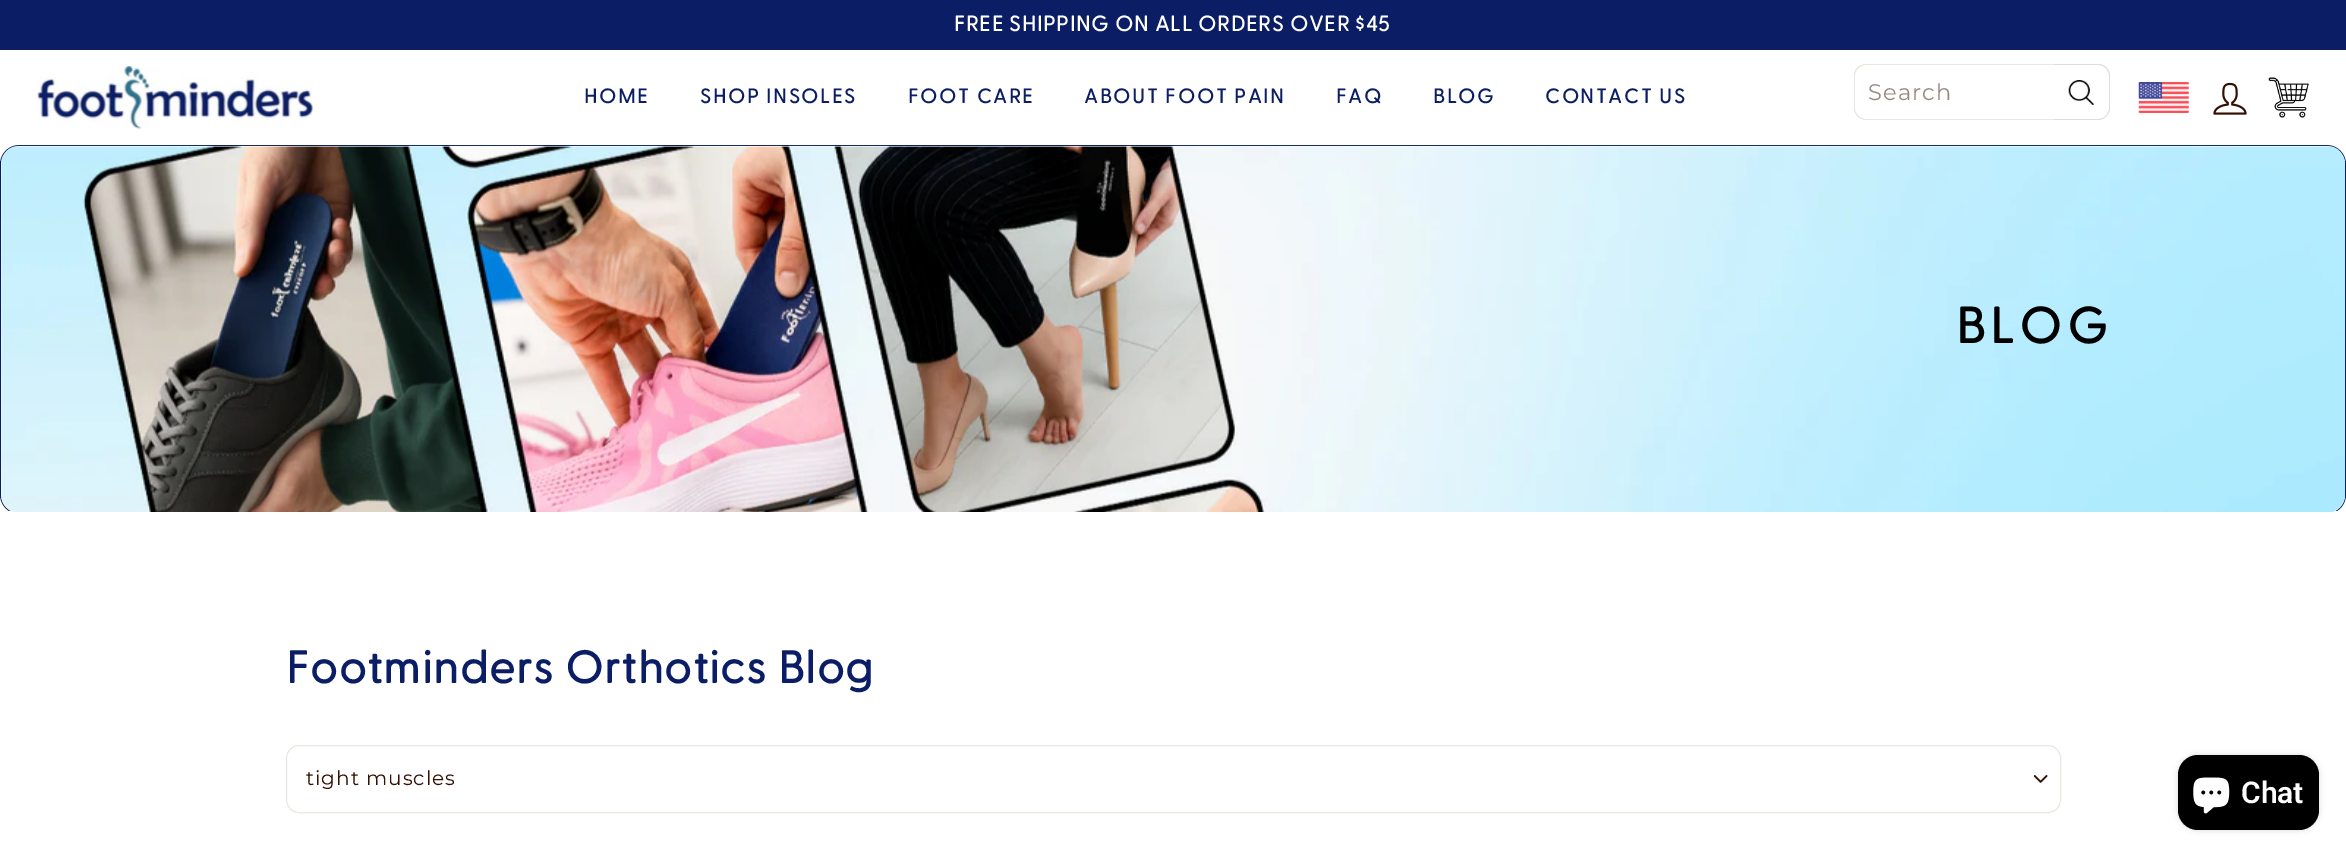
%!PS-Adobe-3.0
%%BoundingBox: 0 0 2346 856
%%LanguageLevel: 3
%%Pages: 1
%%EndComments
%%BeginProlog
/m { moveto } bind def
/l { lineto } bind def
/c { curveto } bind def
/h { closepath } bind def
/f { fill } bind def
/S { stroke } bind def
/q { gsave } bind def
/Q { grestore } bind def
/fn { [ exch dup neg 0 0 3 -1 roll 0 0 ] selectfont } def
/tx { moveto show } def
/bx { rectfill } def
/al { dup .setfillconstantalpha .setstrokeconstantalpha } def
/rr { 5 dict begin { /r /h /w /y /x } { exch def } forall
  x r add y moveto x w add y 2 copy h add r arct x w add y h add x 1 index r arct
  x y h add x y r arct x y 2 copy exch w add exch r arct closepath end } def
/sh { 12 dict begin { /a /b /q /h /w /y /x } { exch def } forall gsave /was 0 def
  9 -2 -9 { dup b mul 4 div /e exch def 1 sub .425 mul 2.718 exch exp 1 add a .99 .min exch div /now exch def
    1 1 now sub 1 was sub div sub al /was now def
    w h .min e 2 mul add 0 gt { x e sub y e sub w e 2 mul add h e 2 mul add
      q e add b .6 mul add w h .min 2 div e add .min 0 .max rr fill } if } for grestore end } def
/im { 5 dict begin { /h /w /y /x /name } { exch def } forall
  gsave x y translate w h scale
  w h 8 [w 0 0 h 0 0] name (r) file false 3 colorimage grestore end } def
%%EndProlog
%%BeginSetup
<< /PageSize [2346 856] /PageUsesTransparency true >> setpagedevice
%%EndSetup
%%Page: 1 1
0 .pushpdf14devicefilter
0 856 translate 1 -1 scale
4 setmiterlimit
1 setgray
0 0 2346 856 bx
0.043 0.118 0.396 setrgbcolor
0 0 2346 50 bx
/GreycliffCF-Bold 21.25 fn
1 setgray
954 31 m 1.1 0 (FREE SHIPPING ON ALL ORDERS OVER $45) ashow
(image0.raw) 37 66 276 64 im
/GreycliffCF-Bold 20 fn
0.043 0.118 0.396 setrgbcolor
584 103 m 2 0 (HOME) ashow
700 103 m 2 0 (SHOP INSOLES) ashow
908 103 m 2 0 (FOOT CARE) ashow
1084 103 m 2 0 (ABOUT FOOT PAIN) ashow
1336 103 m 2 0 (FAQ) ashow
1433 103 m 2 0 (BLOG) ashow
1545 103 m 2 0 (CONTACT US) ashow
0.91 0.91 0.882 setrgbcolor
1866 64 m 2054 64 l 2054 120 l 1866 120 l 1859 120 1854 114 1854 108 c 1854 76 l 1854 69 1859 64 1866 64 c h 1866 65 m 2054 65 l 2054 119 l 1866 119 l 1860 119 1855 114 1855 108 c 1855 76 l 1855 70 1860 65 1866 65 c h eofill
/Montserrat-Regular 22.5 fn
0.6 0.533 0.51 setrgbcolor
1868 100 m 1.1 0 (Search) ashow
(image1.raw) 2068 80 26 25 im
0.867 setgray
2054 64 m 2098 64 l 2104 64 2110 69 2110 76 c 2110 108 l 2110 114 2104 120 2098 120 c 2054 120 l h 2054 65 m 2098 65 l 2104 65 2109 70 2109 76 c 2109 108 l 2109 114 2104 119 2098 119 c 2054 119 l h eofill
(image2.raw) 2138 82 51 31 im
(image3.raw) 2213 82 34 33 im
(image4.raw) 2268 77 41 41 im
q
0 145 2346 366 rectclip
0.043 0.118 0.396 setrgbcolor
0.5 145.5 2345 368 18.5 rr S
Q
(image5.raw) 1 145 2344 367 im
/GreycliffCF-Bold 50 fn
0 setgray
1956 343 m 5 0 (BLOG) ashow
/GreycliffCF-Bold 45 fn
0.043 0.118 0.396 setrgbcolor
286 683 m 1.25 0 (Footminders Orthotics Blog) ashow
(image6.raw) 2034 775 14 8 im
0.91 0.91 0.882 setrgbcolor
286.5 745.5 1774 67 12.5 rr S
/Montserrat-Regular 20 fn
0.196 0.063 0.016 setrgbcolor
306 785 m 1 0 (tight muscles) ashow
0 setgray
2178 755 141 75 20 3 0.15 sh
2178 755 141 75 20 rr f
(image7.raw) 2193 777 37 37 im
/Roboto-SemiBold 30 fn
1 setgray
(Chat) 2241 803 tx
.poppdf14devicefilter showpage
%%EOF
